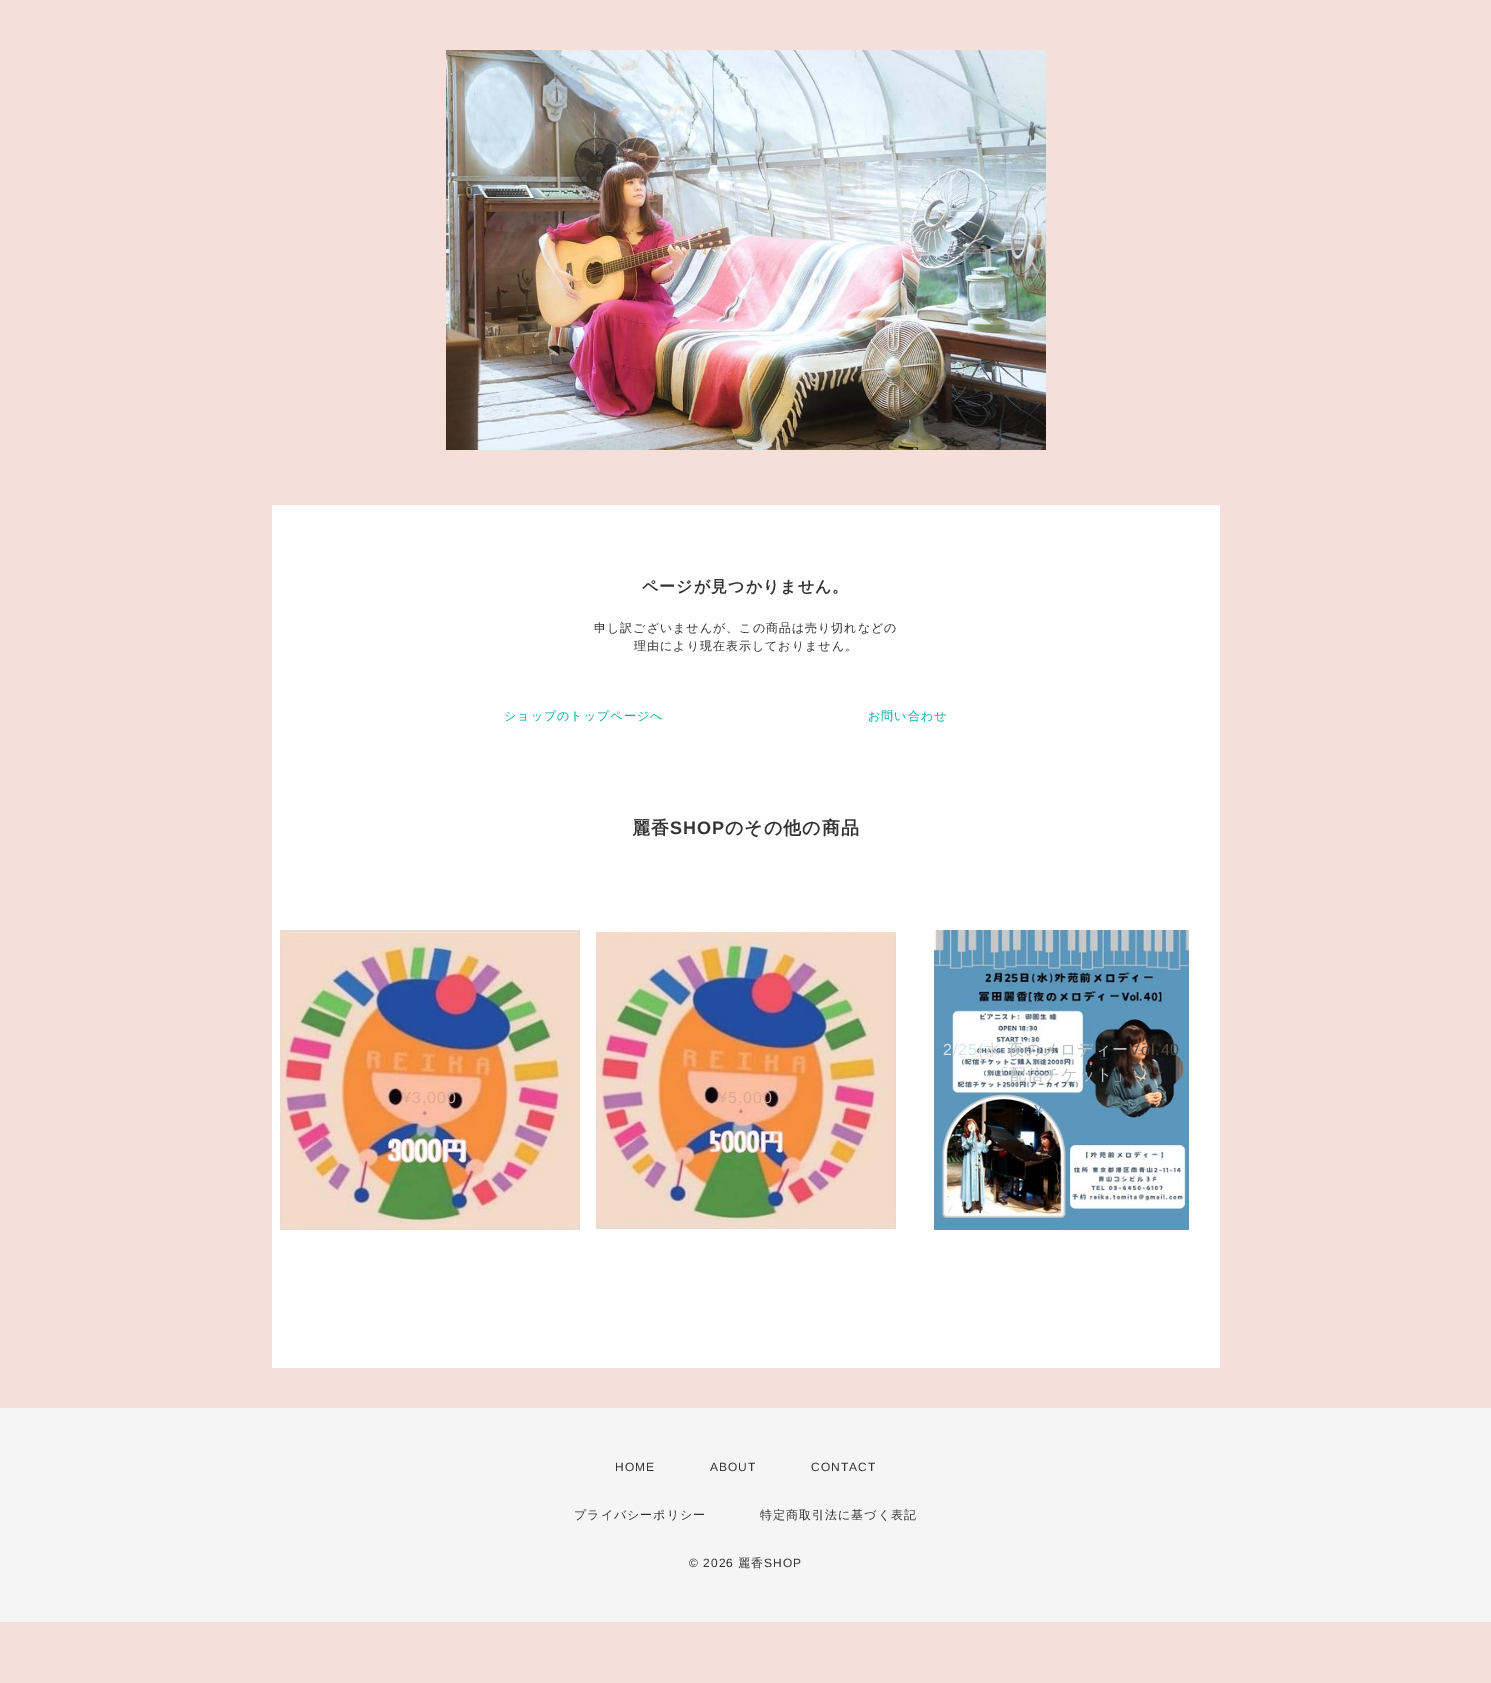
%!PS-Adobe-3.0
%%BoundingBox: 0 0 1491 1683
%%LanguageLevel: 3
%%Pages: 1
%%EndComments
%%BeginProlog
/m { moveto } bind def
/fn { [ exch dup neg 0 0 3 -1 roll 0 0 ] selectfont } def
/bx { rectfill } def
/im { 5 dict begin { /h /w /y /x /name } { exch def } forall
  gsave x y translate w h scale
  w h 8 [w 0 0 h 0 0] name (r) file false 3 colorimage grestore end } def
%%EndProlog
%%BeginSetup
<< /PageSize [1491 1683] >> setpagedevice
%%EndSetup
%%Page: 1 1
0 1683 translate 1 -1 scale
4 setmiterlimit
0.969 0.875 0.851 setrgbcolor
0 0 1491 1683 bx
(image0.raw) 446 50 600 400 im
1 setgray
272 505 948 863 bx
/WenQuanYiZenHei-Bold 16 fn
0.2 setgray
642 592 m 1 0 (ページが見つかりません。) ashow
/WenQuanYiZenHei-Medium 12 fn
594 632 m 1 0 (申し訳ございませんが、この商品は売り切れなどの) ashow
634 650 m 1 0 (理由により現在表示しておりません。) ashow
0 0.682 0.624 setrgbcolor
504 720 m 1 0 (ショップのトップページへ) ashow
868 720 m 1 0 (お問い合わせ) ashow
/WenQuanYiZenHei-Bold 18 fn
0.2 setgray
632 834 m 1 0 (麗香) ashow
/LiberationSans-Bold 18 fn
670 834 m 1 0 (SHOP) ashow
/WenQuanYiZenHei-Bold 18 fn
725 834 m 1 0 (のその他の商品) ashow
(image1.raw) 280 930 300 300 im
/LiberationSans-Regular 16 fn
0.871 0.659 0.573 setrgbcolor
402 1103 m 1 0 (¥3,000) ashow
(image2.raw) 596 932 300 297 im
718 1103 m 1 0 (¥5,000) ashow
(image3.raw) 934 930 255 300 im
0.831 0.89 0.925 setrgbcolor
943 1055 m 1 0 (2/25\() ashow
/WenQuanYiZenHei-Medium 16 fn
0.851 0.867 0.878 setrgbcolor
984 1055 m 1 0 (水) ashow
0.718 0.753 0.773 setrgbcolor
1008 1055 m 1 0 (夜のメロディー) ashow
/LiberationSans-Regular 16 fn
0.349 0.29 0.267 setrgbcolor
1129 1055 m 1 0 (Vol.40) ashow
/WenQuanYiZenHei-Medium 16 fn
0.745 0.765 0.78 setrgbcolor
993 1080 m 1 0 (「配信チケット」) ashow
/LiberationSans-Regular 16 fn
0.408 0.588 0.702 setrgbcolor
1034 1116 m 1 0 (¥) ashow
0.961 setgray
0 1408 1491 214 bx
/LiberationSans-Regular 12 fn
0.2 setgray
615 1471 m 1 0 (HOME) ashow
710 1471 m 1 0 (ABOUT) ashow
811 1471 m 1 0 (CONTACT) ashow
/WenQuanYiZenHei-Medium 12 fn
574 1519 m 1 0 (プライバシーポリシー) ashow
760 1519 m 1 0 (特定商取引法に基づく表記) ashow
/LiberationSans-Regular 12 fn
689 1567 m 1 0 (© 2026) ashow
/WenQuanYiZenHei-Medium 12 fn
738 1567 m 1 0 (麗香) ashow
/LiberationSans-Regular 12 fn
764 1567 m 1 0 (SHOP) ashow
showpage
%%EOF
